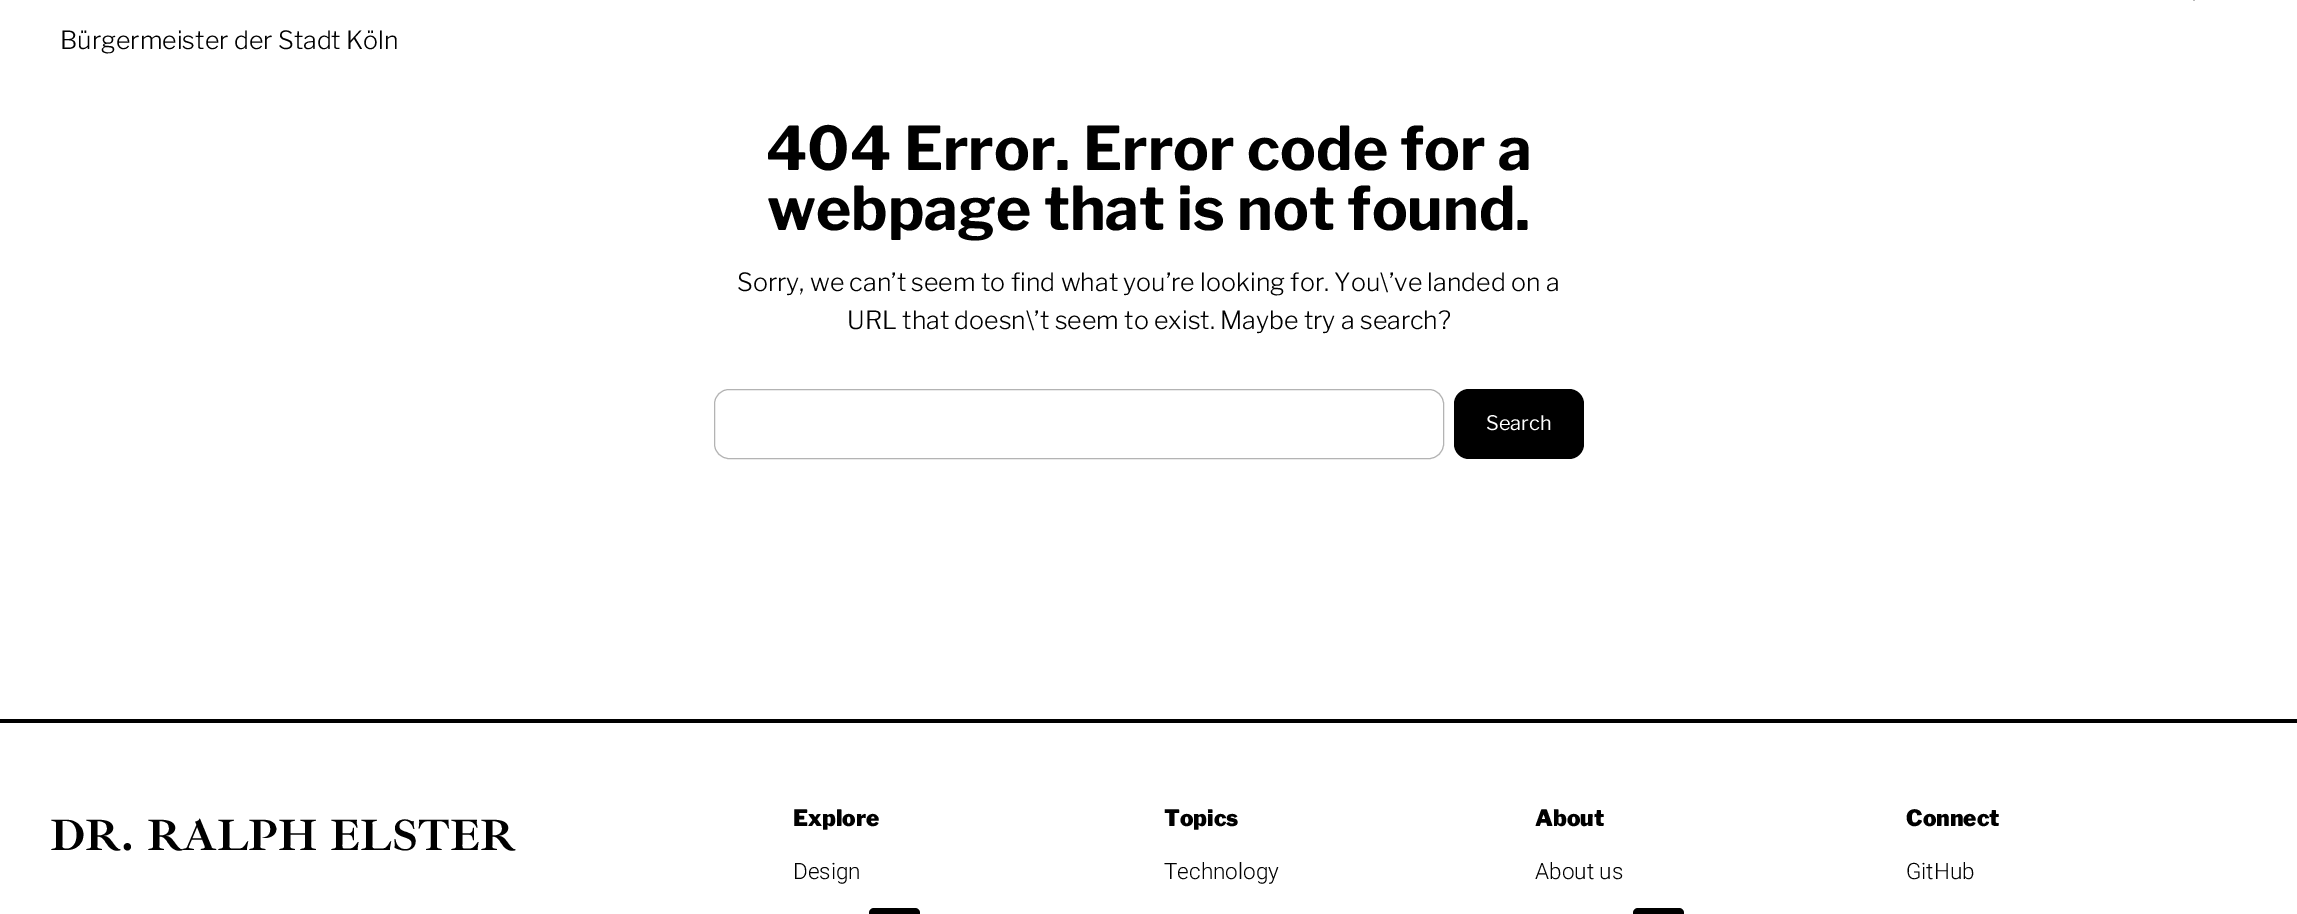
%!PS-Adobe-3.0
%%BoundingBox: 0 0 2297 914
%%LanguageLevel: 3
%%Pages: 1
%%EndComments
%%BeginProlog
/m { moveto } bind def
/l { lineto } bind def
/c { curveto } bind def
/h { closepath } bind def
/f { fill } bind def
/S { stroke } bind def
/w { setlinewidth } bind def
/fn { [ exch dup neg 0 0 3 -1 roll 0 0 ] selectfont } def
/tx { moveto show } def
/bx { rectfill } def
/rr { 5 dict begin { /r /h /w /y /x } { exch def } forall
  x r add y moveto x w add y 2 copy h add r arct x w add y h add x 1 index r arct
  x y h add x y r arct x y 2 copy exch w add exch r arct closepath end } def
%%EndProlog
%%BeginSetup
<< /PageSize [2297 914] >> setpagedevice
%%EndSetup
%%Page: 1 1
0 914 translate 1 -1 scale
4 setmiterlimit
1 setgray
0 0 2297 914 bx
0 setgray
2.5 w
1 setlinecap
1 setlinejoin
2191 -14 m 2191 -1 2171 -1 2171 -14 c 2171 -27 2191 -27 2191 -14 c h 2188 -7 m 2194 -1 l S
/LibreFranklin-Light 25 fn
(Bürgermeister der Stadt Köln) 60 49 tx
/LibreFranklin-Bold 60 fn
(404 Error. Error code for a) 766 170 tx
(webpage that is not found.) 767 230 tx
/LibreFranklin-Light 25 fn
(Sorry, we can’t seem to find what you’re looking for. You\\’ve landed on a) 737 291 tx
(URL that doesn\\’t seem to exist. Maybe try a search?) 847 329 tx
0.702 setgray
1 w
0 setlinecap
0 setlinejoin
714.5 389.5 729 69 14.5 rr S
0 setgray
1454 389 130 70 15 rr f
/LibreFranklin-Regular 20 fn
1 setgray
(Search) 1486 430 tx
0 setgray
0 719 2297 4 bx
/IbarraRealNova-Bold 45 fn
(DR. RALPH ELSTER) 50 850 tx
/LibreFranklin-Black 22.5 fn
(Explore) 793 826 tx
/Roboto-Light 22.5 fn
(Design) 793 879 tx
869 908 51 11 5 rr f
/LibreFranklin-Black 22.5 fn
(Topics) 1164 826 tx
/Roboto-Light 22.5 fn
(Technology) 1164 879 tx
/LibreFranklin-Black 22.5 fn
(About) 1535 826 tx
/Roboto-Light 22.5 fn
(About us) 1535 879 tx
1633 908 51 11 5 rr f
/LibreFranklin-Black 22.5 fn
(Connect) 1906 826 tx
/Roboto-Light 22.5 fn
(GitHub) 1906 879 tx
showpage
%%EOF
